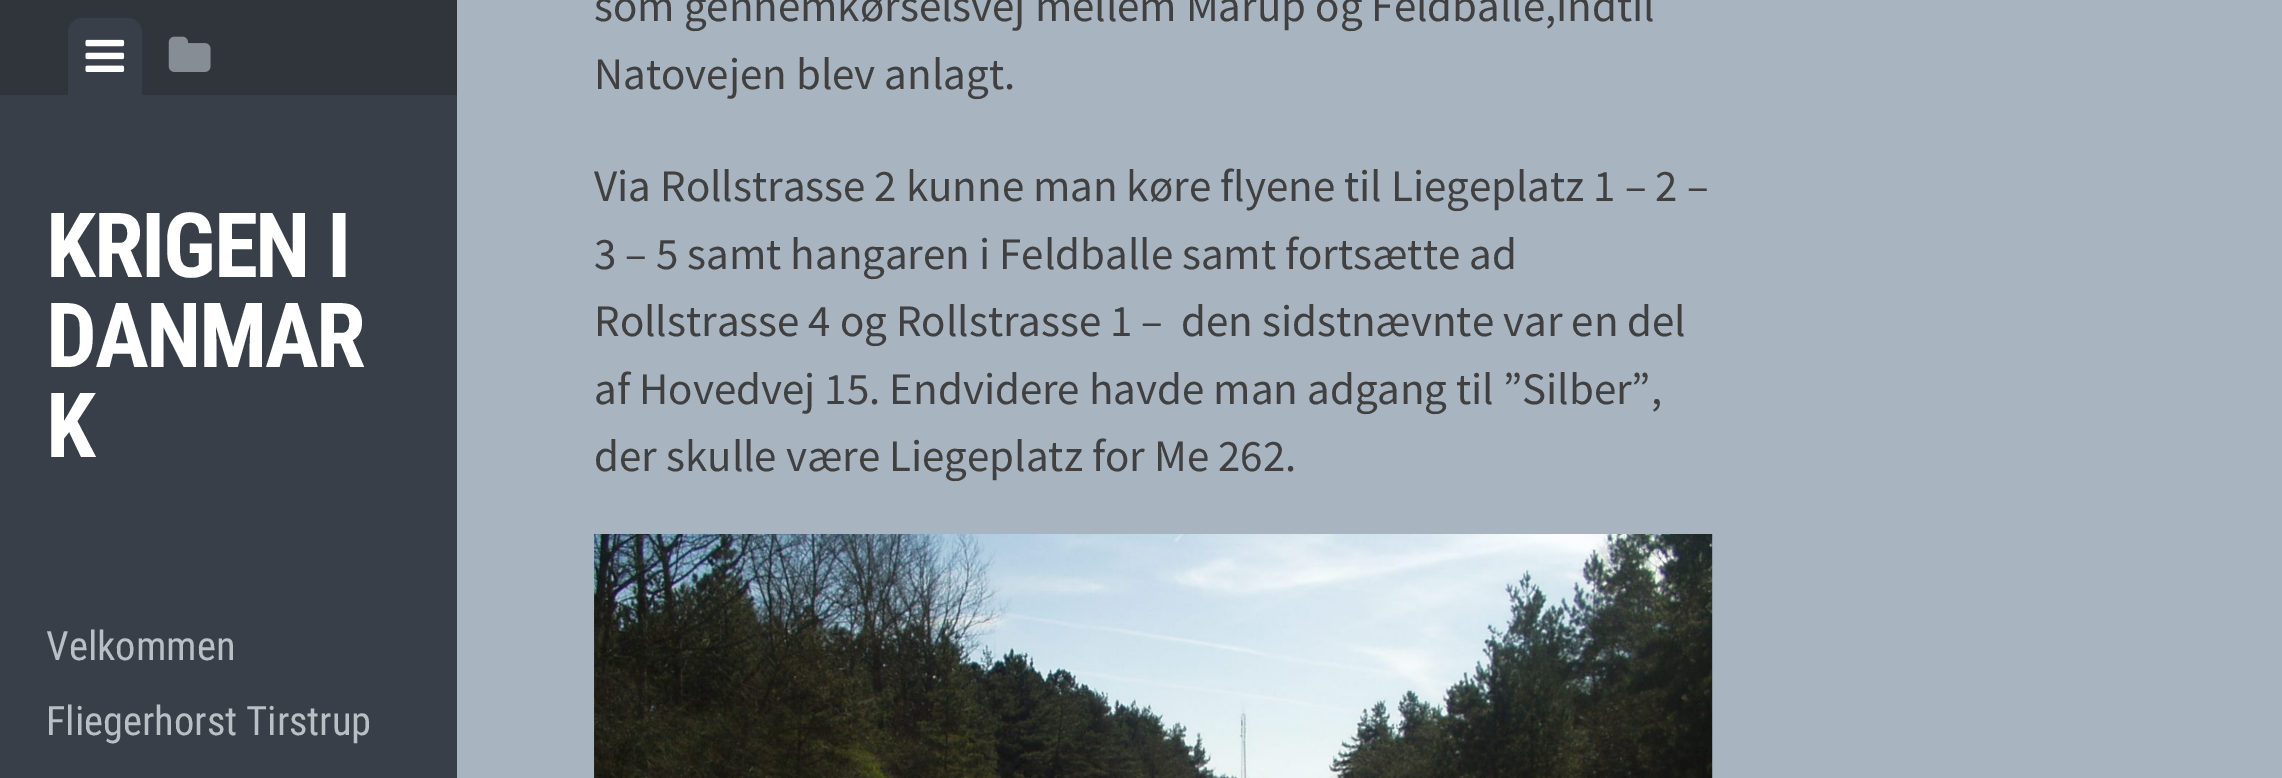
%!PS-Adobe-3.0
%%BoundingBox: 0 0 2282 778
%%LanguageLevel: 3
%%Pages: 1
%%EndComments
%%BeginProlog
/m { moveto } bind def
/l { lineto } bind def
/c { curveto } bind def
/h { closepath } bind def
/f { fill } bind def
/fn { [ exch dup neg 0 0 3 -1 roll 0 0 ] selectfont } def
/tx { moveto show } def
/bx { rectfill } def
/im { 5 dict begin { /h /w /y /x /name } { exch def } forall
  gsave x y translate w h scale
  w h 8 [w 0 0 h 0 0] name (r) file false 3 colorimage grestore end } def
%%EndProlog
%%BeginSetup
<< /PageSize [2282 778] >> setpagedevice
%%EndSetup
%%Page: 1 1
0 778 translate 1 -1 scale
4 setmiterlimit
0.659 0.706 0.749 setrgbcolor
0 0 2282 778 bx
0.22 0.247 0.286 setrgbcolor
0 95 457 683 bx
0.188 0.208 0.235 setrgbcolor
0 0 457 95 bx
0.22 0.247 0.286 setrgbcolor
82 18 m 128 18 l 135.5 18 142 24.5 142 32 c 142 95 l 68 95 l 68 32 l 68 24.5 74.5 18 82 18 c h f
(image0.raw) 85 39 40 33 im
(image1.raw) 168 36 43 36 im
/RobotoCondensed-Bold 90 fn
1 setgray
46 277 m -2.25 0 (KRIGEN I) ashow
46 367 m -2.25 0 (DANMAR) ashow
46 457 m -2.25 0 (K) ashow
/RobotoCondensed-Regular 40.5 fn
0.729 0.749 0.773 setrgbcolor
(Velkommen) 46 660 tx
(Fliegerhorst Tirstrup) 46 735 tx
/SourceSansPro-Regular 45 fn
0.251 setgray
(som gennemkørselsvej mellem Mårup og Feldballe,indtil) 594 21 tx
(Natovejen blev anlagt.) 594 89 tx
(Via Rollstrasse 2 kunne man køre flyene til Liegeplatz 1 – 2 –) 594 201 tx
(3 – 5 samt hangaren i Feldballe samt fortsætte ad) 594 269 tx
(Rollstrasse 4 og Rollstrasse 1 –  den sidstnævnte var en del) 594 336 tx
(af Hovedvej 15. Endvidere havde man adgang til ”Silber”,) 594 404 tx
(der skulle være Liegeplatz for Me 262.) 594 471 tx
(image2.raw) 594 534 1119 244 im
showpage
%%EOF
